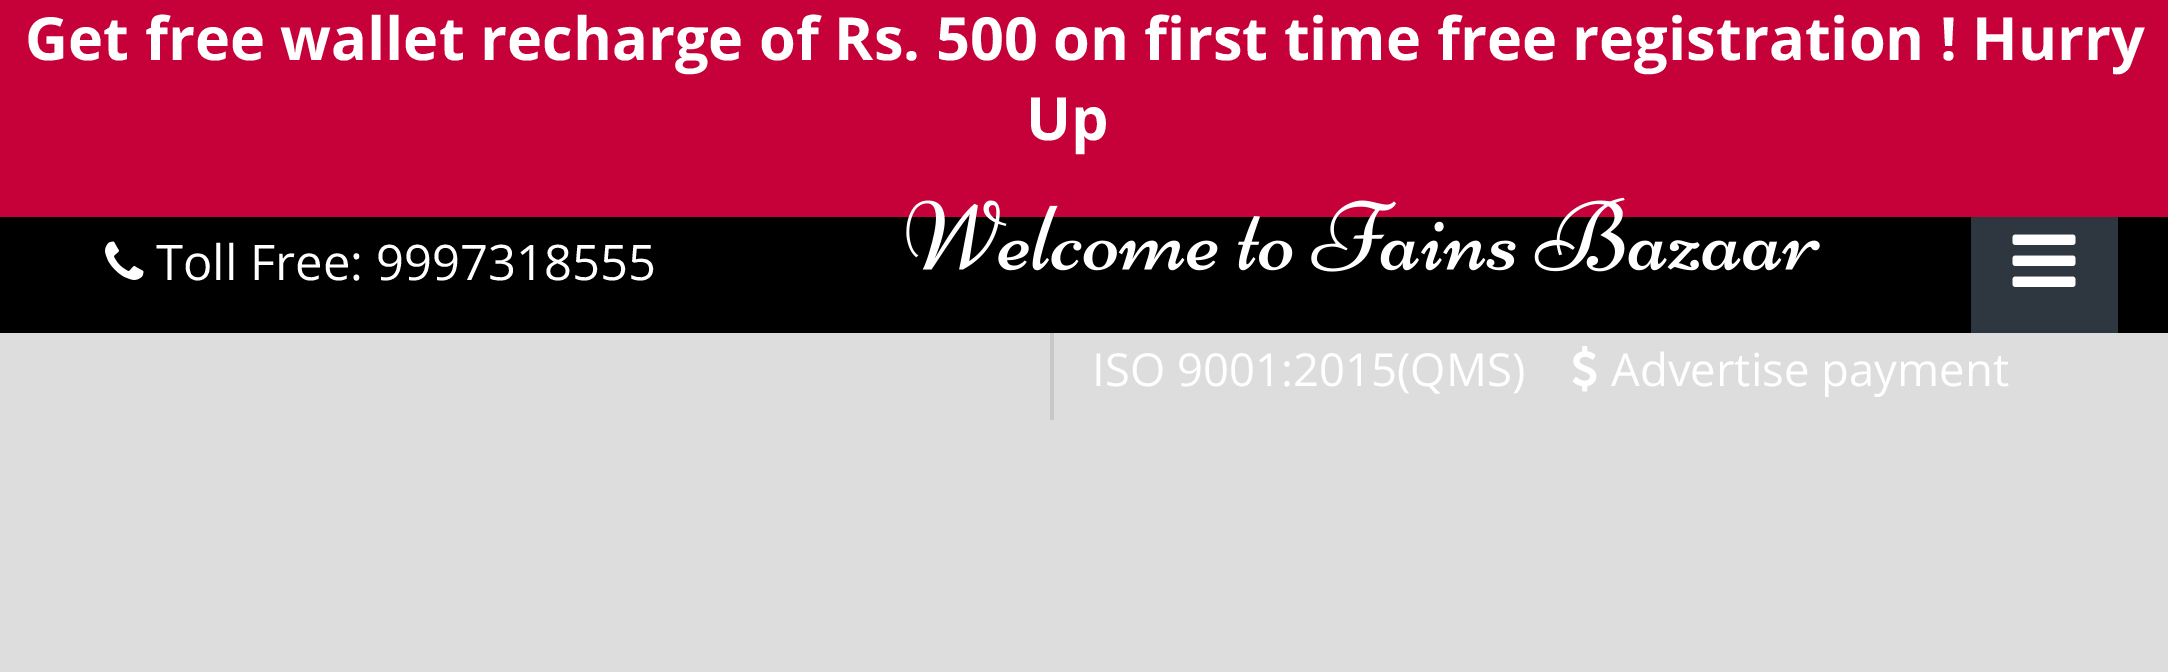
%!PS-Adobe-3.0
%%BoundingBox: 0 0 2168 672
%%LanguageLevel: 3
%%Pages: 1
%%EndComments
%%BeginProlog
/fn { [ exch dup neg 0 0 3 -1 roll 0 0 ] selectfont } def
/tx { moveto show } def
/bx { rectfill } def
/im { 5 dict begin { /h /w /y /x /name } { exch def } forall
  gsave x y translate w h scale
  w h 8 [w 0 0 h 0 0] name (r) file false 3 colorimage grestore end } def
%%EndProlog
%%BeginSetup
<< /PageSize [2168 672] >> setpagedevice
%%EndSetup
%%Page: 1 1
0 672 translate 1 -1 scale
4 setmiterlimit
0.867 setgray
0 0 2168 672 bx
0.776 0 0.22 setrgbcolor
0 0 2168 217 bx
/OpenSans-Bold 59.5 fn
1 setgray
(Get free wallet recharge of Rs. 500 on first time free registration ! Hurry) 25 60 tx
(Up) 1026 140 tx
0 setgray
0 217 2168 116 bx
(image0.raw) 105 241 39 39 im
/OpenSans-Regular 49 fn
1 setgray
(Toll Free: 9997318555) 156 280 tx
(image1.raw) 906 197 914 75 im
/OpenSans-Regular 45.5 fn
(ISO 9001:2015\(QMS\)) 1092 386 tx
(image2.raw) 1572 346 25 46 im
(Advertise payment) 1611 386 tx
0.18 0.212 0.247 setrgbcolor
1971 217 147 116 bx
(image3.raw) 2012 234 64 53 im
0.78 setgray
1050 333 4 87 bx
showpage
%%EOF
